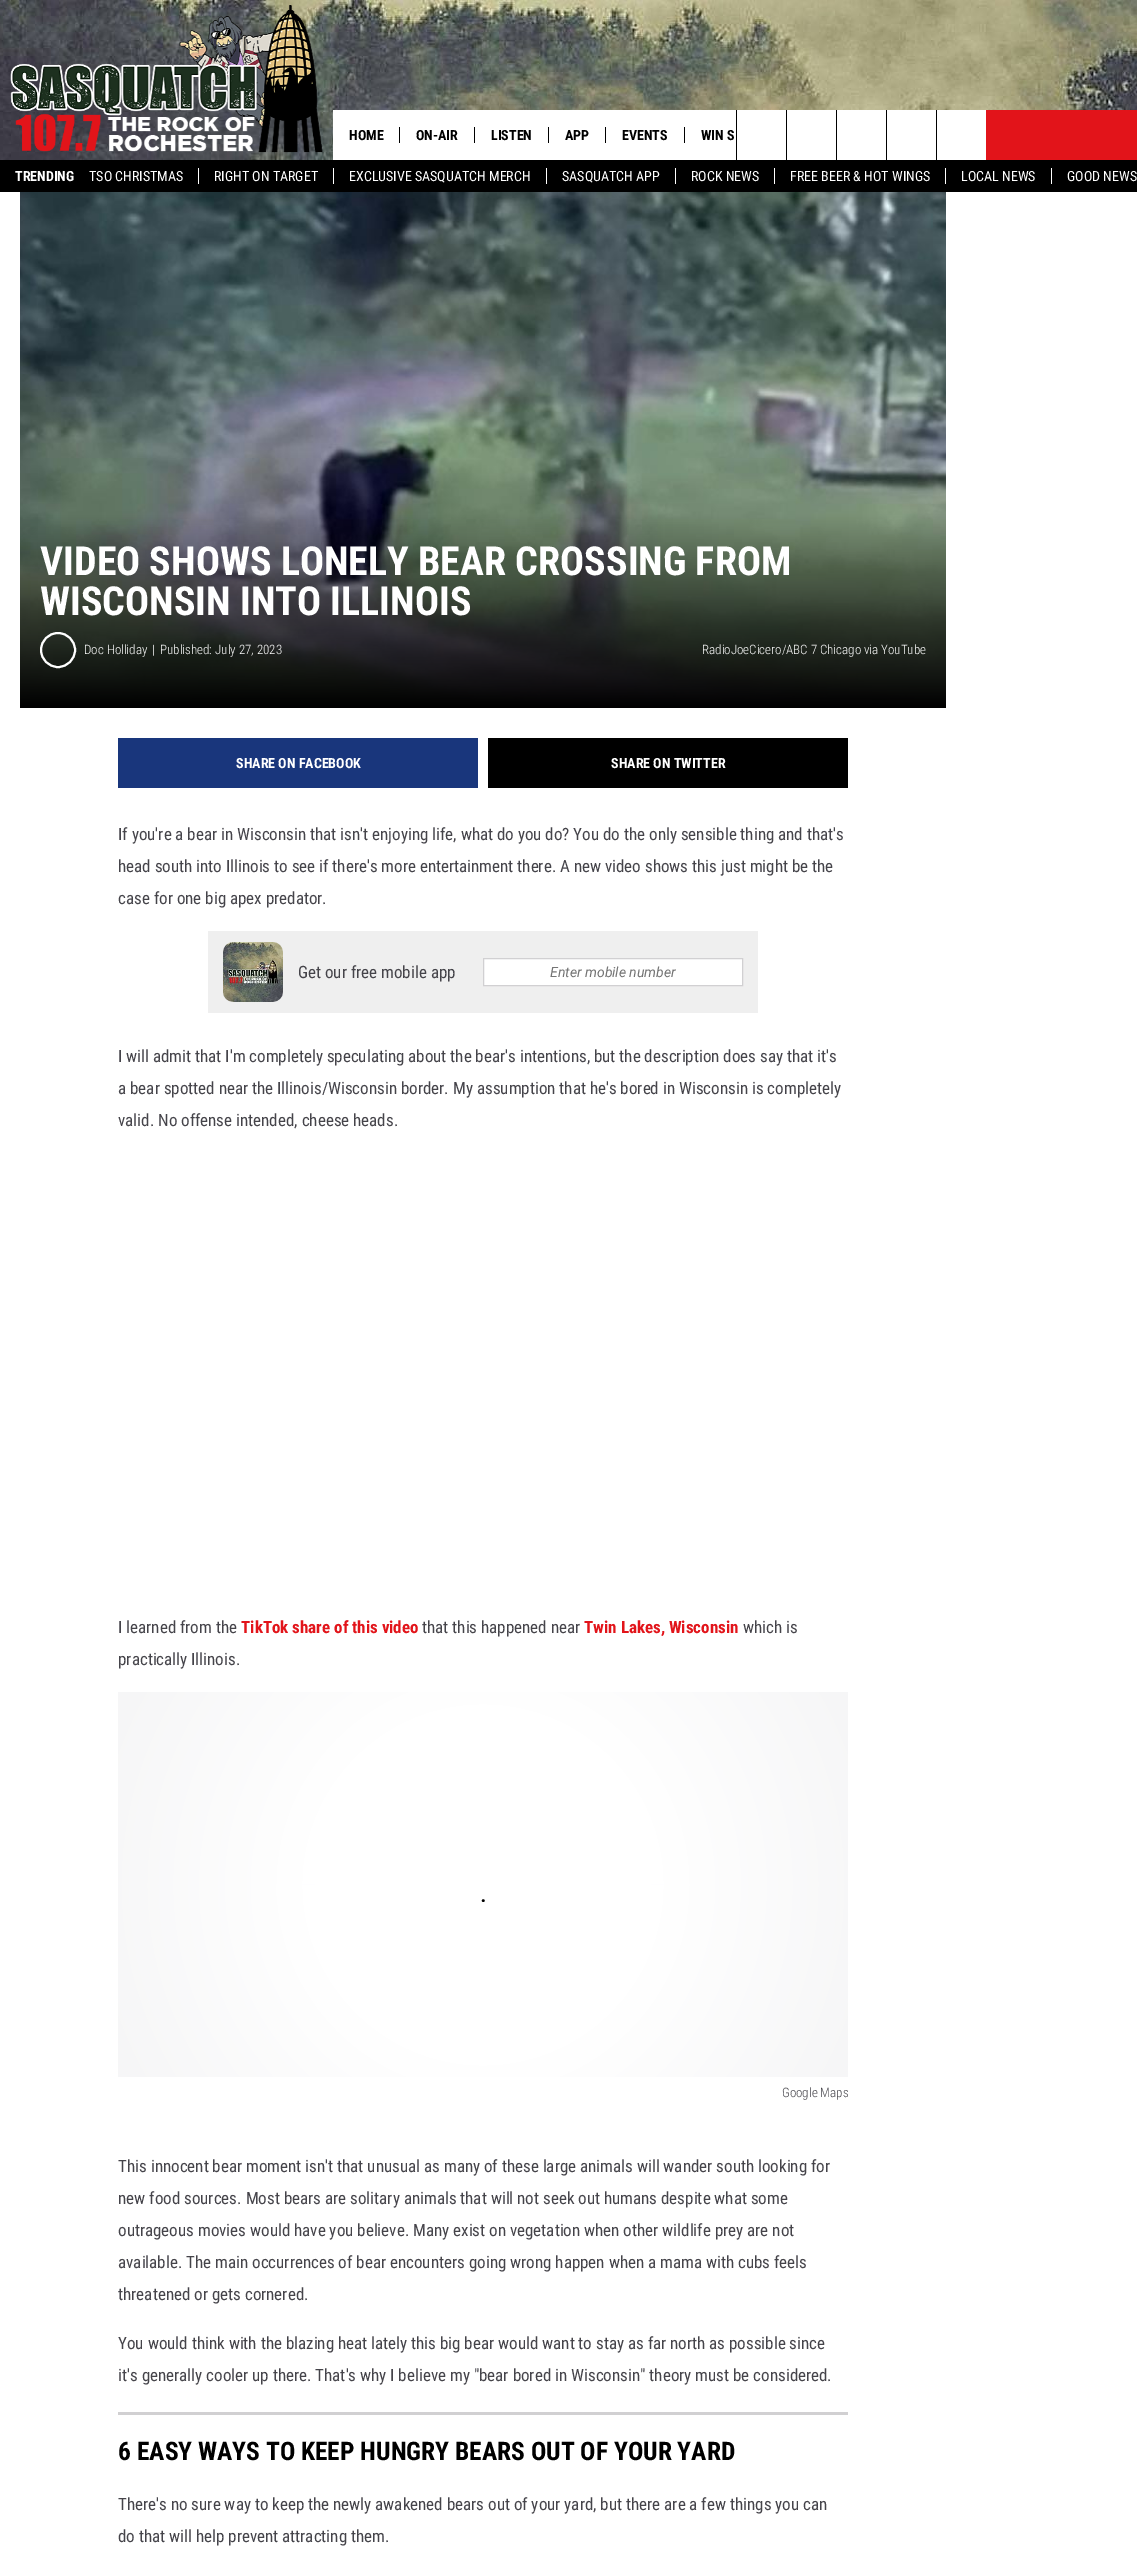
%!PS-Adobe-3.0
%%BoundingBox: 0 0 1137 2550
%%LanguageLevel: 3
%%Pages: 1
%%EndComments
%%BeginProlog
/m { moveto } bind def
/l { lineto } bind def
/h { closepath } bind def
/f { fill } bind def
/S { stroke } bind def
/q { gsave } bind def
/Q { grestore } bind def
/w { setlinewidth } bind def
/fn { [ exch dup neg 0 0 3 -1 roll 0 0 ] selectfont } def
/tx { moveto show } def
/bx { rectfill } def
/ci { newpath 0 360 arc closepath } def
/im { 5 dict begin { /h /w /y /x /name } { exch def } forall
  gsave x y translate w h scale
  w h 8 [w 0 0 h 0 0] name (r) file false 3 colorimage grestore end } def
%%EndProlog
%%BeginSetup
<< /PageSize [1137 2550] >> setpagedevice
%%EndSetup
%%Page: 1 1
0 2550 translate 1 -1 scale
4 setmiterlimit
1 setgray
0 0 1137 2550 bx
(image0.raw) 0 0 1137 160 im
(image1.raw) 10 5 313 148 im
333 110 403 50 bx
/RobotoCondensed-Bold 14 fn
0 setgray
(HOME) 349 140 tx
399 127 1 16 bx
(ON-AIR) 416 140 tx
474 127 1 16 bx
(LISTEN) 491 140 tx
548 127 1 16 bx
(APP) 565 140 tx
605 127 1 16 bx
(EVENTS) 622 140 tx
684 127 1 16 bx
(WIN S) 701 140 tx
1 setgray
737 110 49 50 bx
0 setgray
736 110 1 50 bx
1 setgray
787 110 199 50 bx
0 setgray
786 110 1 50 bx
836 110 1 50 bx
886 110 1 50 bx
936 110 1 50 bx
0.886 0.078 0.102 setrgbcolor
986 110 151 50 bx
0 setgray
0 160 1137 32 bx
1 setgray
(TRENDING) 15 181 tx
/RobotoCondensed-Regular 14 fn
(TSO CHRISTMAS) 89 181 tx
(RIGHT ON TARGET) 214 181 tx
198 168 1 16 bx
(EXCLUSIVE SASQUATCH MERCH) 349 181 tx
333 168 1 16 bx
(SASQUATCH APP) 562 181 tx
546 168 1 16 bx
(ROCK NEWS) 691 181 tx
675 168 1 16 bx
(FREE BEER & HOT WINGS) 790 181 tx
774 168 1 16 bx
(LOCAL NEWS) 961 181 tx
945 168 1 16 bx
(GOOD NEWS) 1067 181 tx
1051 168 1 16 bx
(image2.raw) 20 192 926 516 im
/RobotoCondensed-Bold 40 fn
(VIDEO SHOWS LONELY BEAR CROSSING FROM) 40 575 tx
(WISCONSIN INTO ILLINOIS) 40 615 tx
2 w
58 650 17 ci S
/RobotoCondensed-Light 13 fn
(Doc Holliday) 84 654 tx
(|) 152 654 tx
(Published: July 27, 2023) 160 654 tx
(RadioJoeCicero/ABC 7 Chicago via YouTube) 702 654 tx
0.098 0.212 0.486 setrgbcolor
118 738 360 50 bx
/RobotoCondensed-Bold 14 fn
1 setgray
(SHARE ON FACEBOOK) 236 768 tx
0 setgray
488 738 360 50 bx
1 setgray
(SHARE ON TWITTER) 611 768 tx
/RobotoCondensed-Regular 17 fn
0.271 0.267 0.29 setrgbcolor
(If you're a bear in Wisconsin that isn't enjoying life, what do you do? You do the only sensible thing and that's) 118 840 tx
(head south into Illinois to see if there's more entertainment there. A new video shows this just might be the) 118 872 tx
(case for one big apex predator.) 118 904 tx
0.937 setgray
208 931 550 82 bx
(image3.raw) 223 942 60 60 im
0.271 0.267 0.29 setrgbcolor
(Get our free mobile app) 298 978 tx
1 setgray
483.5 958.5 m 742.5 958.5 l 742.5 985.5 l 483.5 985.5 l h q f Q
0.82 0.816 0.824 setrgbcolor
1 w
S
/Roboto-Italic 14 fn
0.459 setgray
(Enter mobile number) 550 977 tx
/RobotoCondensed-Regular 17 fn
0.271 0.267 0.29 setrgbcolor
(I will admit that I'm completely speculating about the bear's intentions, but the description does say that it's) 118 1062 tx
(a bear spotted near the Illinois/Wisconsin border. My assumption that he's bored in Wisconsin is completely) 118 1094 tx
(valid. No offense intended, cheese heads.) 118 1126 tx
(I learned from the) 118 1633 tx
/RobotoCondensed-Bold 17 fn
0.886 0.078 0.102 setrgbcolor
(TikTok share of this video) 241 1633 tx
/RobotoCondensed-Regular 17 fn
0.271 0.267 0.29 setrgbcolor
(that this happened near) 422 1633 tx
/RobotoCondensed-Bold 17 fn
0.886 0.078 0.102 setrgbcolor
(Twin Lakes, Wisconsin) 584 1633 tx
/RobotoCondensed-Regular 17 fn
0.271 0.267 0.29 setrgbcolor
(which is) 743 1633 tx
(practically Illinois.) 118 1665 tx
q 118 1692 m 848 1692 l 848 2077 l 118 2077 l h clip newpath 483 1885 translate 413 413 scale
<< /ShadingType 3 /ColorSpace /DeviceRGB /Coords [0 0 0 0 0 1] /Extend [true true] /Function << /FunctionType 3 /Domain [0 1] /Functions [<< /FunctionType 2 /Domain [0 1] /C0 [1 1 1] /C1 [1 1 1] /N 1 >> << /FunctionType 2 /Domain [0 1] /C0 [1 1 1] /C1 [0.965 0.965 0.969] /N 1 >>] /Bounds [0.4] /Encode [0 1 0 1] >> >> shfill Q
0 setgray
2.4 w
1 setlinecap
483 1900.5 m 483.5 1900.5 l S
/RobotoCondensed-Light 13 fn
0.271 0.267 0.29 setrgbcolor
(Google Maps) 782 2097 tx
/RobotoCondensed-Regular 17 fn
(This innocent bear moment isn't that unusual as many of these large animals will wander south looking for) 118 2172 tx
(new food sources. Most bears are solitary animals that will not seek out humans despite what some) 118 2204 tx
(outrageous movies would have you believe. Many exist on vegetation when other wildlife prey are not) 118 2236 tx
(available. The main occurrences of bear encounters going wrong happen when a mama with cubs feels) 118 2268 tx
(threatened or gets cornered.) 118 2300 tx
(You would think with the blazing heat lately this big bear would want to stay as far north as possible since) 118 2349 tx
(it's generally cooler up there. That's why I believe my "bear bored in Wisconsin" theory must be considered.) 118 2381 tx
0.82 0.816 0.824 setrgbcolor
118 2412 730 3 bx
/RobotoCondensed-Bold 25.5 fn
0 setgray
(6 EASY WAYS TO KEEP HUNGRY BEARS OUT OF YOUR YARD) 118 2460 tx
/RobotoCondensed-Regular 17 fn
0.271 0.267 0.29 setrgbcolor
(There's no sure way to keep the newly awakened bears out of your yard, but there are a few things you can) 118 2510 tx
(do that will help prevent attracting them.) 118 2542 tx
showpage
%%EOF
